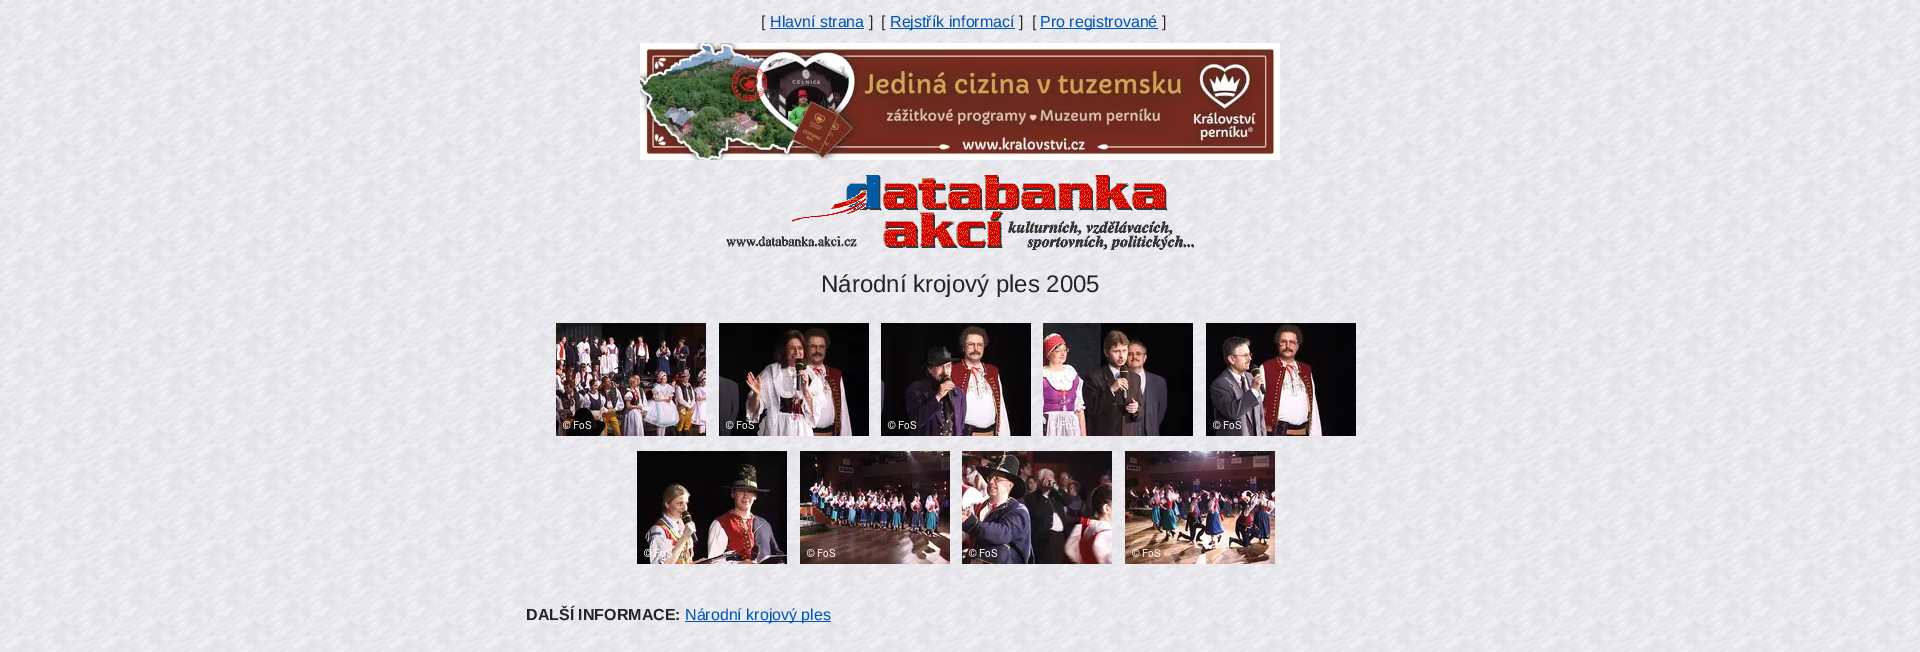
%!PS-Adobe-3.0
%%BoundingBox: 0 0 1920 652
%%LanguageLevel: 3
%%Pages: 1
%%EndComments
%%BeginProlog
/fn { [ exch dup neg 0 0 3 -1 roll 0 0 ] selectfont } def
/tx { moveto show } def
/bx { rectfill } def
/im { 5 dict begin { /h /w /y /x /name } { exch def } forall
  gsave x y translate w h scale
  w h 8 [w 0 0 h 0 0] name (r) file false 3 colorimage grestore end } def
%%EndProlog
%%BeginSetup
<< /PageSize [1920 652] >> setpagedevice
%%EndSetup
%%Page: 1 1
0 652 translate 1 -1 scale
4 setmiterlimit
1 setgray
0 0 1920 652 bx
(image0.raw) 0 0 1920 652 im
/LiberationSans-Regular 16 fn
0.129 0.145 0.161 setrgbcolor
([) 761 27 tx
0 0.337 0.702 setrgbcolor
(Hlavní strana) 770 27 tx
770 28 94 1 bx
0.129 0.145 0.161 setrgbcolor
(]) 869 27 tx
([) 881 27 tx
0 0.337 0.702 setrgbcolor
890 28 125 1 bx
(Rejstřík informací) 890 27 tx
0.129 0.145 0.161 setrgbcolor
(]) 1019 27 tx
([) 1032 27 tx
0 0.337 0.702 setrgbcolor
1040 28 118 1 bx
(Pro registrované) 1040 27 tx
0.129 0.145 0.161 setrgbcolor
(]) 1162 27 tx
(image1.raw) 640 43 640 117 im
(image2.raw) 726 175 468 75 im
/LiberationSans-Regular 24 fn
(Národní krojový ples 2005) 821 292 tx
(image3.raw) 556 323 150 113 im
(image4.raw) 719 323 150 113 im
(image5.raw) 881 323 150 113 im
(image6.raw) 1043 323 150 113 im
(image7.raw) 1206 323 150 113 im
(image8.raw) 637 451 150 113 im
(image9.raw) 800 451 150 113 im
(image10.raw) 962 451 150 113 im
(image11.raw) 1125 451 150 113 im
/LiberationSans-Bold 16 fn
(DALŠÍ INFORMACE:) 526 620 tx
0 0.337 0.702 setrgbcolor
685 621 146 1 bx
/LiberationSans-Regular 16 fn
(Národní krojový ples) 685 620 tx
showpage
%%EOF
